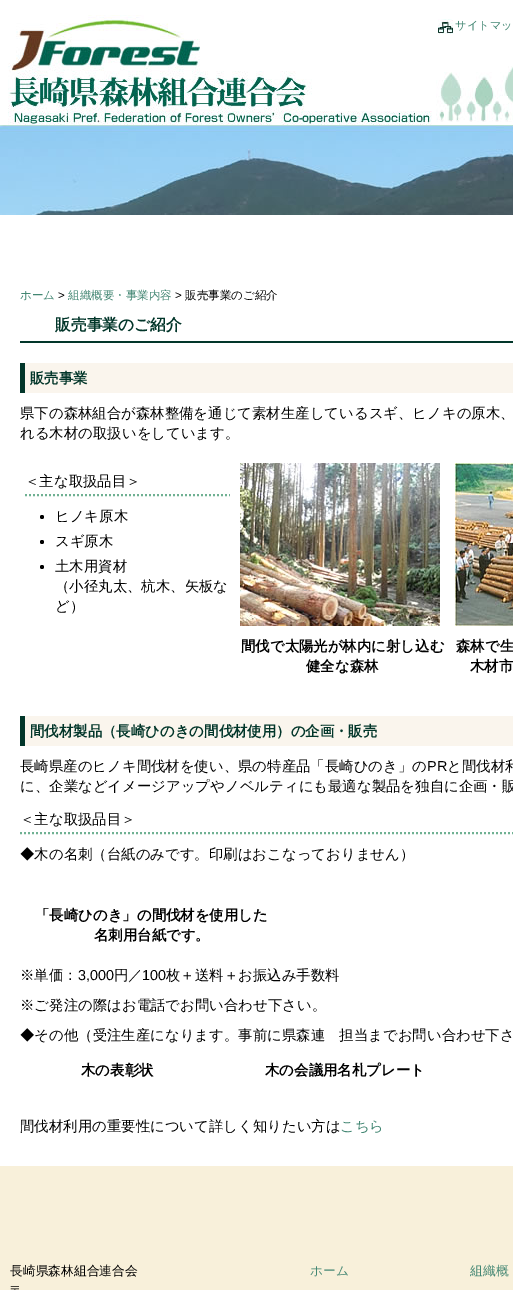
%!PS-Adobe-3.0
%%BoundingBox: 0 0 513 1290
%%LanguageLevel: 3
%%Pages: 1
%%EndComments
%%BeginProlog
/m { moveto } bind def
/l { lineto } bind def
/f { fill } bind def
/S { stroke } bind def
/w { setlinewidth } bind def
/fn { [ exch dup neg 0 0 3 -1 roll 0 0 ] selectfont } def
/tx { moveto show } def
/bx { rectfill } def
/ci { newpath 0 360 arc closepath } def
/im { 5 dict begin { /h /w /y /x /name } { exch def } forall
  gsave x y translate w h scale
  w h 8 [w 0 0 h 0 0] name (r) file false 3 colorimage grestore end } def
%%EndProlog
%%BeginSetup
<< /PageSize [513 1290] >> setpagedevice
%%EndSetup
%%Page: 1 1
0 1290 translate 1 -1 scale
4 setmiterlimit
1 setgray
0 0 513 1290 bx
(image0.raw) 8 15 424 110 im
(image1.raw) 438 19 15 15 im
/WenQuanYiZenHei-Medium 11.25 fn
0.263 0.529 0.451 setrgbcolor
(サイトマッ) 455 29 tx
(image2.raw) 436 66 77 56 im
(image3.raw) 0 125 513 90 im
/WenQuanYiZenHei-Medium 11.5 fn
(ホーム) 20 299 tx
/LiberationSans-Regular 11.5 fn
0 setgray
(>) 58 299 tx
/WenQuanYiZenHei-Medium 11.5 fn
0.263 0.529 0.451 setrgbcolor
(組織概要・事業内容) 68 299 tx
/LiberationSans-Regular 11.5 fn
0 setgray
(>) 175 299 tx
/WenQuanYiZenHei-Medium 11.5 fn
(販売事業のご紹介) 185 299 tx
0.008 0.212 0.165 setrgbcolor
20 341 493 2 bx
/WenQuanYiZenHei-Bold 15.75 fn
(販売事業のご紹介) 55 330 tx
0.98 0.961 0.929 setrgbcolor
25 363 488 30 bx
0.008 0.212 0.165 setrgbcolor
20 363 5 30 bx
/WenQuanYiZenHei-Bold 14.4 fn
(販売事業) 30 383 tx
/WenQuanYiZenHei-Medium 14.4 fn
0 setgray
(県下の森林組合が森林整備を通じて素材生産しているスギ、ヒノキの原木、) 20 418 tx
(れる木材の取扱いをしています。) 20 438 tx
0.439 0.694 0.576 setrgbcolor
2 w
[2 2] 0 setdash
25 495 m 230 495 l S
0 setgray
(＜主な取扱品目＞) 25 486 tx
42 517 2 ci f
(ヒノキ原木) 55 521 tx
42 542 2 ci f
(スギ原木) 55 546 tx
42 567 2 ci f
(土木用資材) 55 571 tx
(（小径丸太、杭木、矢板な) 55 591 tx
(ど）) 55 611 tx
(image4.raw) 240 463 200 163 im
/WenQuanYiZenHei-Bold 14.4 fn
(間伐で太陽光が林内に射し込む) 241 651 tx
(健全な森林) 306 671 tx
(image5.raw) 455 463 58 163 im
(森林で生) 456 651 tx
(木材市) 470 671 tx
0.98 0.961 0.929 setrgbcolor
25 716 488 30 bx
0.008 0.212 0.165 setrgbcolor
20 716 5 30 bx
(間伐材製品（長崎ひのきの間伐材使用）の企画・販売) 30 736 tx
/WenQuanYiZenHei-Medium 14.4 fn
0 setgray
(長崎県産のヒノキ間伐材を使い、県の特産品「長崎ひのき」の) 20 771 tx
/LiberationSans-Regular 14.4 fn
(PR) 427 771 tx
/WenQuanYiZenHei-Medium 14.4 fn
(と間伐材利) 447 771 tx
(に、企業などイメージアップやノベルティにも最適な製品を独自に企画・販) 20 791 tx
0.439 0.694 0.576 setrgbcolor
20 833 m 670 833 l S
0 setgray
(＜主な取扱品目＞) 20 824 tx
(◆木の名刺（台紙のみです。印刷はおこなっておりません）) 20 859 tx
/WenQuanYiZenHei-Bold 14.4 fn
(「長崎ひのき」の間伐材を使用した) 35 920 tx
(名刺用台紙です。) 94 940 tx
/WenQuanYiZenHei-Medium 14.4 fn
(※単価：) 20 980 tx
/LiberationSans-Regular 14.4 fn
(3,000) 78 980 tx
/WenQuanYiZenHei-Medium 14.4 fn
(円／) 114 980 tx
/LiberationSans-Regular 14.4 fn
(100) 142 980 tx
/WenQuanYiZenHei-Medium 14.4 fn
(枚＋送料＋お振込み手数料) 166 980 tx
(※ご発注の際はお電話でお問い合わせ下さい。) 20 1010 tx
(◆その他（受注生産になります。事前に県森連　担当までお問い合わせ下さ) 20 1040 tx
/WenQuanYiZenHei-Bold 14.4 fn
(木の表彰状) 81 1075 tx
(木の会議用名札プレート) 265 1075 tx
/WenQuanYiZenHei-Medium 14.4 fn
(間伐材利用の重要性について詳しく知りたい方は) 20 1131 tx
0.263 0.529 0.451 setrgbcolor
(こちら) 340 1131 tx
0.973 0.941 0.855 setrgbcolor
0 1166 513 124 bx
/WenQuanYiZenHei-Medium 12.75 fn
0 setgray
(長崎県森林組合連合会) 10 1275 tx
(〒) 10 1295 tx
0.263 0.529 0.451 setrgbcolor
(ホーム) 310 1275 tx
(組織概) 470 1275 tx
showpage
%%EOF
